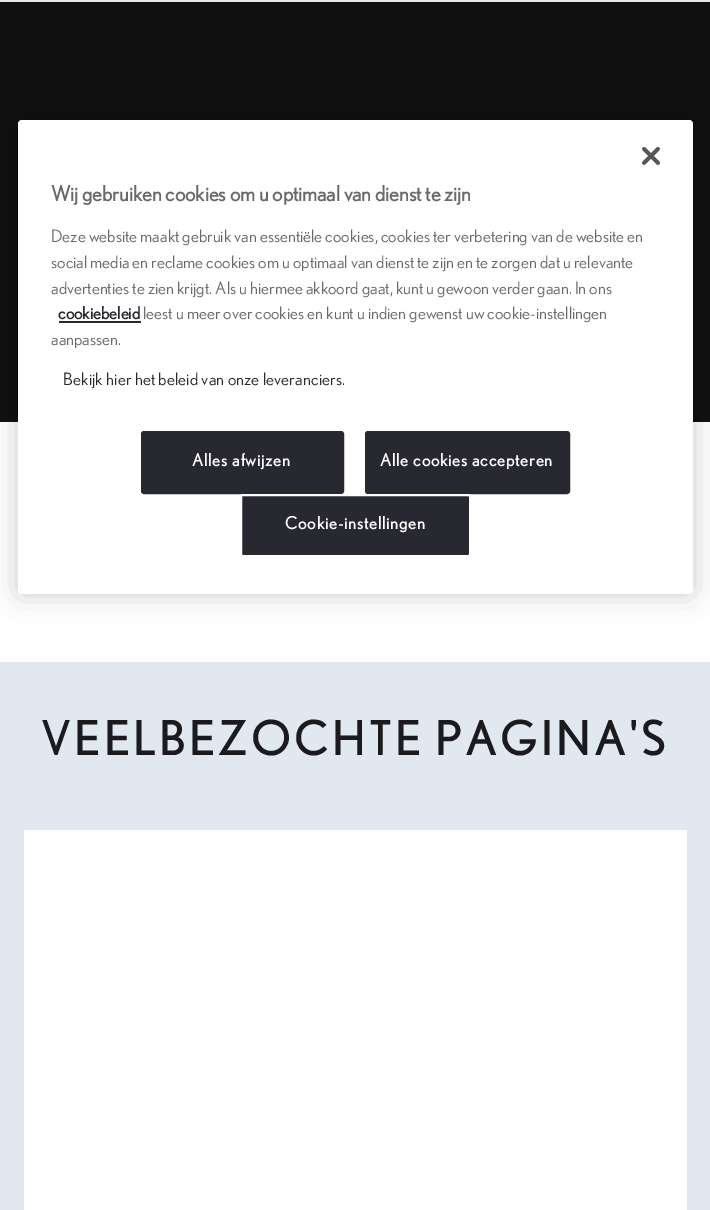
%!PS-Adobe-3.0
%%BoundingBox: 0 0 710 1210
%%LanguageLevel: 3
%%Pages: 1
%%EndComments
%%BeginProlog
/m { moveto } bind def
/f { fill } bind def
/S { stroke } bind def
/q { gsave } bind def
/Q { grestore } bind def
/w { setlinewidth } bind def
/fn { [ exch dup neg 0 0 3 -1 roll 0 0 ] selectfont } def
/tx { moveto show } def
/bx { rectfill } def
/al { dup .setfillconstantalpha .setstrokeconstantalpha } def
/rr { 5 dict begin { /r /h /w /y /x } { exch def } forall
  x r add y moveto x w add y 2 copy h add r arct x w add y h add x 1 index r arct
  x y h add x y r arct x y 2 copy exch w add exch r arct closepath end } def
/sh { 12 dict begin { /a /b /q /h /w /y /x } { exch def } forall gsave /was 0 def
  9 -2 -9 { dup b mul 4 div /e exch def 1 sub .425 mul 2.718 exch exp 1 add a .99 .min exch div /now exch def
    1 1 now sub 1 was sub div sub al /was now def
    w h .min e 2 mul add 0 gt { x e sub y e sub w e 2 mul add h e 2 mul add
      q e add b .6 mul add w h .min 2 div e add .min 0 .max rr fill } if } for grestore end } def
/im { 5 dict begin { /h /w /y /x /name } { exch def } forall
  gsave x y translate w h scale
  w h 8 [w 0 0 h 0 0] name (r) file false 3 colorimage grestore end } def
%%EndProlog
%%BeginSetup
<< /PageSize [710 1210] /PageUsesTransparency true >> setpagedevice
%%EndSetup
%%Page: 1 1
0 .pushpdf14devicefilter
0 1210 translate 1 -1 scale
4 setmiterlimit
1 setgray
0 0 710 1210 bx
0.886 0.91 0.937 setrgbcolor
0 0 710 2 bx
0.063 setgray
0 2 710 420 bx
0 setgray
18 120 675 474 4 13.5 0.2 sh
1 setgray
18 120 675 474 4 rr f
(image0.raw) 642 147 18 18 im
/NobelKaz-Bold 21 fn
0.412 setgray
(Wij gebruiken cookies om u optimaal van dienst te zijn) 51 201 tx
/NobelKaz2-Regular 17.05 fn
(Deze website maakt gebruik van essentiële cookies, cookies ter verbetering van de website en) 51 242 tx
(social media en reclame cookies om u optimaal van dienst te zijn en te zorgen dat u relevante) 51 268 tx
(advertenties te zien krijgt. Als u hiermee akkoord gaat, kunt u gewoon verder gaan. In ons) 51 294 tx
/NobelKaz-Bold 17.05 fn
0.157 0.157 0.188 setrgbcolor
(cookiebeleid) 58 319 tx
59 321 82 2 bx
/NobelKaz2-Regular 17.05 fn
0.412 setgray
(leest u meer over cookies en kunt u indien gewenst uw cookie-instellingen) 143 319 tx
(aanpassen.) 51 345 tx
0.157 0.157 0.188 setrgbcolor
63 385 m 0.15 0 (Bekijk hier het beleid van onze leveranciers.) ashow
142 432 201 61 2 rr q f Q
2 w
S
/NobelKaz-Bold 17.05 fn
1 setgray
192 466 m 0.85 0 (Alles afwijzen) ashow
0.157 0.157 0.188 setrgbcolor
366 432 203 61 2 rr q f Q
S
1 setgray
380 466 m 0.85 0 (Alle cookies accepteren) ashow
0.157 0.157 0.188 setrgbcolor
241 495 229 61 2 rr q f Q
1 setgray
S
285 529 m 0.85 0 (Cookie-instellingen) ashow
0.886 0.91 0.937 setrgbcolor
0 662 710 548 bx
/NobelKaz-Regular 48 fn
0.102 0.102 0.122 setrgbcolor
41 755 m 3 0 (VEELBEZOCHTE PAGINA'S) ashow
1 setgray
24 830 663 380 bx
.poppdf14devicefilter showpage
%%EOF
